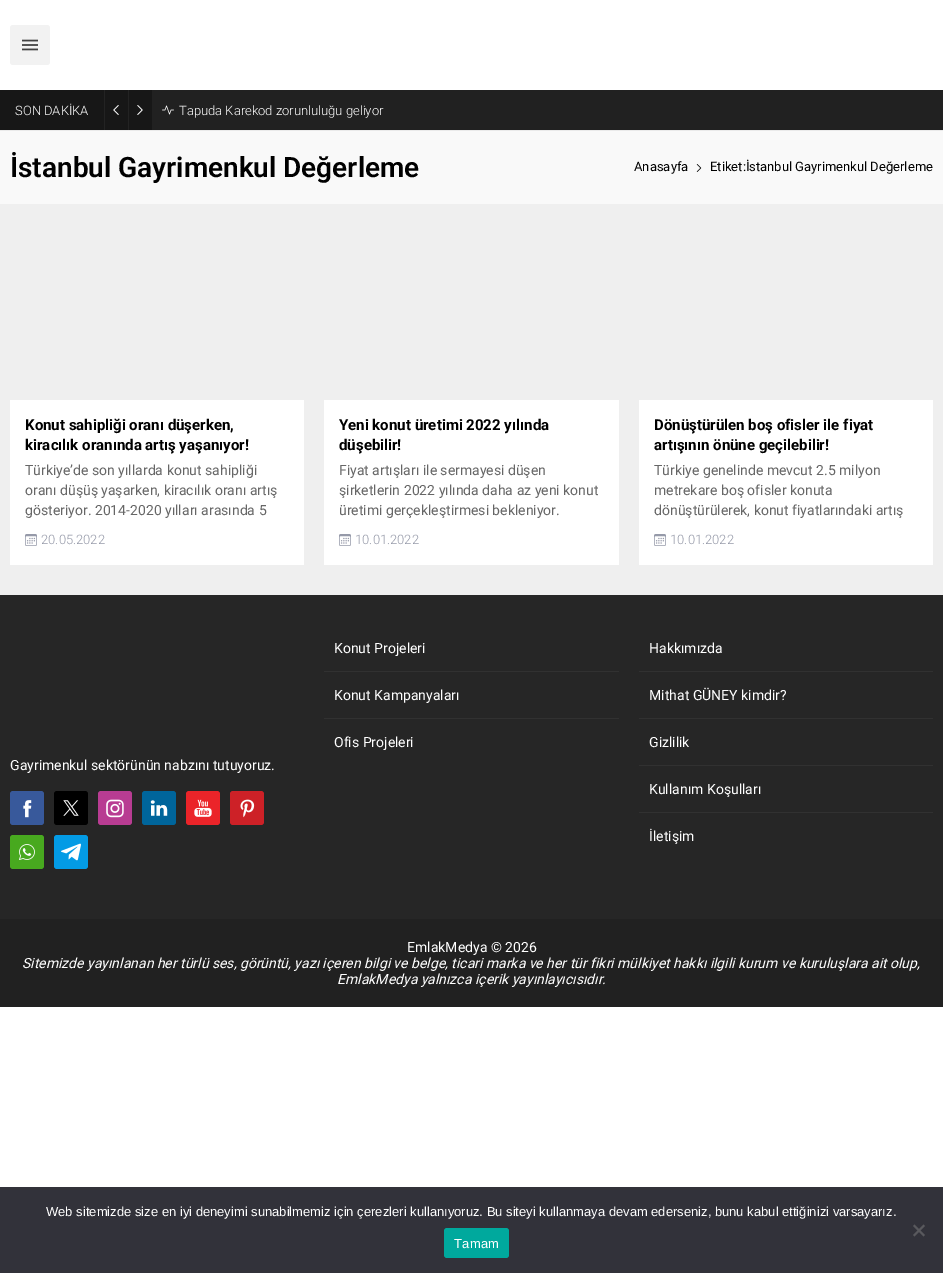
%!PS-Adobe-3.0
%%BoundingBox: 0 0 943 1273
%%LanguageLevel: 3
%%Pages: 1
%%EndComments
%%BeginProlog
/m { moveto } bind def
/l { lineto } bind def
/h { closepath } bind def
/f { fill } bind def
/fn { [ exch dup neg 0 0 3 -1 roll 0 0 ] selectfont } def
/tx { moveto show } def
/bx { rectfill } def
/rr { 5 dict begin { /r /h /w /y /x } { exch def } forall
  x r add y moveto x w add y 2 copy h add r arct x w add y h add x 1 index r arct
  x y h add x y r arct x y 2 copy exch w add exch r arct closepath end } def
/im { 5 dict begin { /h /w /y /x /name } { exch def } forall
  gsave x y translate w h scale
  w h 8 [w 0 0 h 0 0] name (r) file false 3 colorimage grestore end } def
%%EndProlog
%%BeginSetup
<< /PageSize [943 1273] >> setpagedevice
%%EndSetup
%%Page: 1 1
0 1273 translate 1 -1 scale
4 setmiterlimit
1 setgray
0 0 943 1273 bx
0.937 setgray
0 204 943 391 bx
0.918 setgray
0 130 943 1 bx
0.949 setgray
10 25 40 40 3 rr f
(image0.raw) 22 39 16 12 im
0.129 setgray
152 90 791 40 bx
0.09 setgray
0 90 152 40 bx
/Roboto-Light 13 fn
1 setgray
(SON DAKİKA) 15 115 tx
0.137 setgray
104 90 1 40 bx
(image1.raw) 113 105 6 10 im
128 90 1 40 bx
(image2.raw) 137 105 6 10 im
(image3.raw) 162 105 12 10 im
1 setgray
(Tapuda Karekod zorunluluğu geliyor) 179 115 tx
0.976 setgray
0 131 943 73 bx
/Roboto-SemiBold 28 fn
0 setgray
(İstanbul Gayrimenkul Değerleme) 10 177 tx
/Roboto-Regular 13 fn
(Anasayfa) 634 171 tx
(image4.raw) 696 164 6 8 im
(Etiket:İstanbul Gayrimenkul Değerleme) 710 171 tx
1 setgray
10 400 294 165 bx
/Roboto-Bold 15 fn
0 setgray
(Konut sahipliği oranı düşerken,) 25 430 tx
(kiracılık oranında artış yaşanıyor!) 25 450 tx
/Roboto-Regular 14 fn
0.4 setgray
(Türkiye’de son yıllarda konut sahipliği) 25 475 tx
(oranı düşüş yaşarken, kiracılık oranı artış) 25 495 tx
(gösteriyor. 2014-2020 yılları arasında 5) 25 515 tx
(image5.raw) 25 534 12 12 im
/Roboto-Light 13 fn
0.588 0.604 0.663 setrgbcolor
(20.05.2022) 41 544 tx
1 setgray
324 400 295 165 bx
/Roboto-Bold 15 fn
0 setgray
(Yeni konut üretimi 2022 yılında) 339 430 tx
(düşebilir!) 339 450 tx
/Roboto-Regular 14 fn
0.4 setgray
(Fiyat artışları ile sermayesi düşen) 339 475 tx
(şirketlerin 2022 yılında daha az yeni konut) 339 495 tx
(üretimi gerçekleştirmesi bekleniyor.) 339 515 tx
(image5.raw) 339 534 12 12 im
/Roboto-Light 13 fn
0.588 0.604 0.663 setrgbcolor
(10.01.2022) 355 544 tx
1 setgray
639 400 294 165 bx
/Roboto-Bold 15 fn
0 setgray
(Dönüştürülen boş ofisler ile fiyat) 654 430 tx
(artışının önüne geçilebilir!) 654 450 tx
/Roboto-Regular 14 fn
0.4 setgray
(Türkiye genelinde mevcut 2.5 milyon) 654 475 tx
(metrekare boş ofisler konuta) 654 495 tx
(dönüştürülerek, konut fiyatlarındaki artış) 654 515 tx
(image5.raw) 654 534 12 12 im
/Roboto-Light 13 fn
0.588 0.604 0.663 setrgbcolor
(10.01.2022) 670 544 tx
0.149 setgray
0 595 943 324 bx
/Roboto-Regular 14 fn
1 setgray
(Gayrimenkul sektörünün nabzını tutuyoruz.) 10 770 tx
0.22 0.349 0.608 setrgbcolor
10 791 34 34 3 rr f
(image6.raw) 23 800 9 18 im
0 setgray
54 791 34 34 3 rr f
(image7.raw) 63 800 16 16 im
0.722 0.235 0.573 setrgbcolor
98 791 34 34 3 rr f
(image8.raw) 106 799 18 19 im
0 0.396 0.608 setrgbcolor
142 791 34 34 3 rr f
(image9.raw) 150 800 18 16 im
0.922 0.141 0.161 setrgbcolor
186 791 34 34 3 rr f
(image10.raw) 194 799 18 18 im
0.804 0.129 0.153 setrgbcolor
230 791 34 34 3 rr f
(image11.raw) 240 799 15 19 im
0.282 0.663 0.122 setrgbcolor
10 835 34 34 3 rr f
(image12.raw) 19 844 16 16 im
0.012 0.608 0.898 setrgbcolor
54 835 34 34 3 rr f
(image13.raw) 61 843 20 18 im
1 setgray
(Konut Projeleri) 334 653 tx
0.192 setgray
324 671 295 1 bx
1 setgray
(Konut Kampanyaları) 334 700 tx
0.192 setgray
324 718 295 1 bx
1 setgray
(Ofis Projeleri) 334 747 tx
(Hakkımızda) 649 653 tx
0.192 setgray
639 671 294 1 bx
1 setgray
(Mithat GÜNEY kimdir?) 649 700 tx
0.192 setgray
639 718 294 1 bx
1 setgray
(Gizlilik) 649 747 tx
0.192 setgray
639 765 294 1 bx
1 setgray
(Kullanım Koşulları) 649 794 tx
0.192 setgray
639 812 294 1 bx
1 setgray
(İletişim) 649 841 tx
0.129 setgray
0 919 943 88 bx
1 setgray
(EmlakMedya © 2026) 407 952 tx
/Roboto-Italic 14 fn
(Sitemizde yayınlanan her türlü ses, görüntü, yazı içeren bilgi ve belge, ticari marka ve her tür fikri mülkiyet hakkı ilgili kurum ve kuruluşlara ait olup,) 22 968 tx
(EmlakMedya yalnızca içerik yayınlayıcısıdır.) 337 984 tx
0.196 0.196 0.227 setrgbcolor
0 1187 943 86 bx
/LiberationSans-Regular 13 fn
1 setgray
(Web sitemizde size en iyi deneyimi sunabilmemiz için çerezleri kullanıyoruz. Bu siteyi kullanmaya devam ederseniz, bunu kabul ettiğinizi varsayarız.) 46 1216 tx
0.349 0.349 0.365 setrgbcolor
923.5 1224.5 m 925 1226 l 914.5 1236.5 l 913 1235 l h f
913 1226 m 914.5 1224.5 l 925 1235 l 923.5 1236.5 l h f
0 0.663 0.616 setrgbcolor
444 1228 65 30 3 rr f
1 setgray
454 1248 m 0.25 0 (Tamam) ashow
showpage
%%EOF
